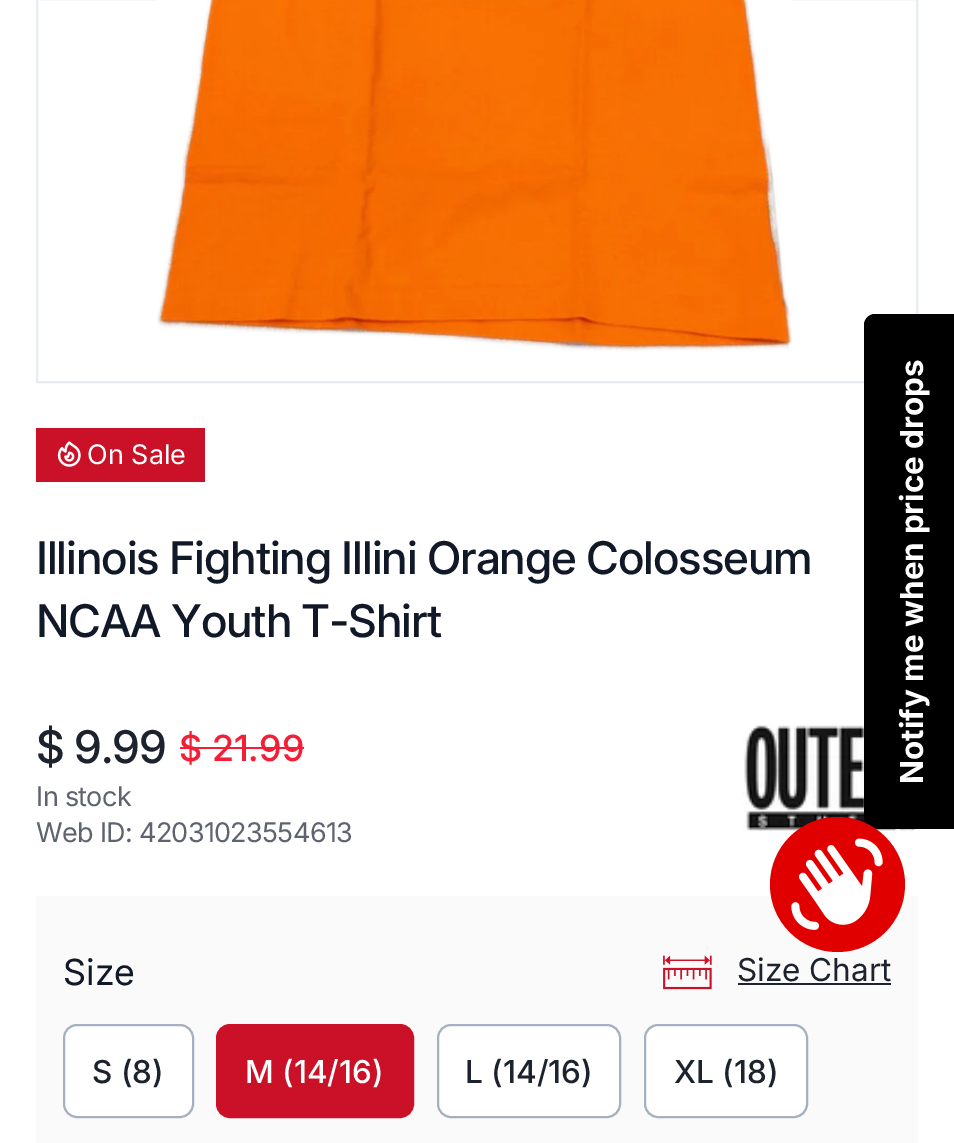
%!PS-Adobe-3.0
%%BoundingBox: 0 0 954 1143
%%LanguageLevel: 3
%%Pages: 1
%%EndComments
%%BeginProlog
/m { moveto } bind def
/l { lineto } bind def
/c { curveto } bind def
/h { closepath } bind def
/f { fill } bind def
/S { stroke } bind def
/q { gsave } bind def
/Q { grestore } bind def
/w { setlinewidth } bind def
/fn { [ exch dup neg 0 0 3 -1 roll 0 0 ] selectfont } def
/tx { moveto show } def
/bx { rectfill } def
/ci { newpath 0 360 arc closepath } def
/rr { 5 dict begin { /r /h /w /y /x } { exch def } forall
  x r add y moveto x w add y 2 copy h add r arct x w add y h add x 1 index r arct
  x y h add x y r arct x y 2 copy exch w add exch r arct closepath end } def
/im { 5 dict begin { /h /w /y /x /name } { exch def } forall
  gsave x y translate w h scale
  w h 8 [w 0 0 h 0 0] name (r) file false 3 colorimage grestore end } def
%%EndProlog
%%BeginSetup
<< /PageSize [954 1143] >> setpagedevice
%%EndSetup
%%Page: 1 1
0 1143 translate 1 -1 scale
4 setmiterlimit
1 setgray
0 0 954 1143 bx
0.906 0.925 0.953 setrgbcolor
2 w
37 -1 880 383 rectstroke
(image0.raw) 157 0 635 351 im
0.792 0.067 0.153 setrgbcolor
36 428 169 54 bx
(image1.raw) 57 441 24 26 im
/Inter-Regular 27 fn
1 setgray
(On Sale) 87 464 tx
/Inter-Medium 45 fn
0.067 0.094 0.153 setrgbcolor
36 574 m -1.1 0 (Illinois Fighting Illini Orange Colosseum) ashow
36 637 m -1.1 0 (NCAA Youth T-Shirt) ashow
0.114 0.137 0.18 setrgbcolor
36 763 m -1.1 0 ($ 9.99) ashow
/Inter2-Medium 36 fn
0.961 0.118 0.216 setrgbcolor
($ 21.99) 179 761 tx
180 747 124 2 bx
/Inter-Regular 27 fn
0.365 0.392 0.439 setrgbcolor
36 806 m -0.7 0 (In stock) ashow
36 842 m -0.7 0 (Web ID: 42031023554613) ashow
(image2.raw) 743 724 174 108 im
0.98 setgray
36 896 882 247 bx
/Inter2-Regular 36 fn
0.067 0.094 0.153 setrgbcolor
(Size) 63 985 tx
(image3.raw) 663 955 49 35 im
/Inter-Regular 31.5 fn
0.114 0.137 0.18 setrgbcolor
(Size Chart) 737 981 tx
738 983 153 2 bx
1 setgray
64 1025 129 92 13 rr q f Q
0.655 0.69 0.753 setrgbcolor
S
/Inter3-Medium 31.5 fn
0.114 0.137 0.18 setrgbcolor
(S \(8\)) 92 1083 tx
0.792 0.067 0.153 setrgbcolor
217 1025 196 92 13 rr q f Q
S
1 setgray
(M \(14/16\)) 245 1083 tx
438 1025 182 92 13 rr q f Q
0.655 0.69 0.753 setrgbcolor
S
0.114 0.137 0.18 setrgbcolor
(L \(14/16\)) 465 1083 tx
1 setgray
645 1025 162 92 13 rr q f Q
0.655 0.69 0.753 setrgbcolor
S
0.114 0.137 0.18 setrgbcolor
(XL \(18\)) 674 1083 tx
0 setgray
864 818 m 864 325 l 864 319 869 314 875 314 c 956 314 l 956 829 l 875 829 l 869 829 864 824 864 818 c h f
/Inter-Bold 31.5 fn
1 setgray
q 923 784 translate -90 rotate 0 0 m (Notify me when price drops) show Q
0.882 0 0 setrgbcolor
837.5 884.5 67.5 ci f
(image4.raw) 791 838 92 92 im
showpage
%%EOF
